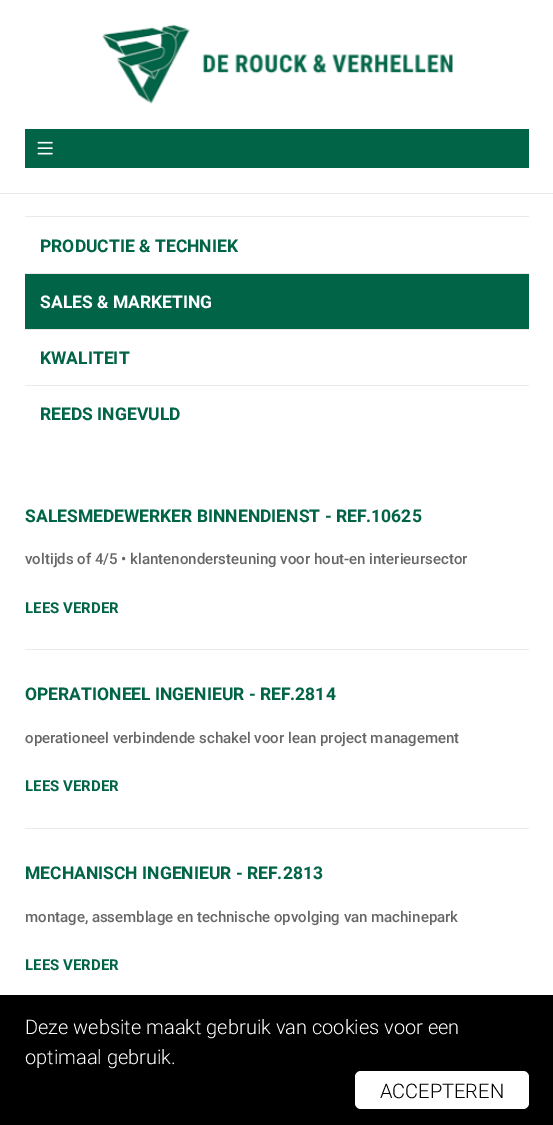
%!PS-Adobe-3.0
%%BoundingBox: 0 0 553 1125
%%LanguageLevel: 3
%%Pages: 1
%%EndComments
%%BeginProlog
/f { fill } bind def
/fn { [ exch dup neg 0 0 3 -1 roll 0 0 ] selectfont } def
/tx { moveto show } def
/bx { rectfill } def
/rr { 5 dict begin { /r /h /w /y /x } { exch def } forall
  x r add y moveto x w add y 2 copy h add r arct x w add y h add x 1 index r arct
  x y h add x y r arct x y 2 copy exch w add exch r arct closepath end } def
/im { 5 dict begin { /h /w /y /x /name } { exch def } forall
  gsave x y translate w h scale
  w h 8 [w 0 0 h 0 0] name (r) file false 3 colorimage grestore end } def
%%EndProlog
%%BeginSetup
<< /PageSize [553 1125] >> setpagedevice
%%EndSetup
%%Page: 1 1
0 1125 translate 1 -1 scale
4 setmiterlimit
1 setgray
0 0 553 1125 bx
0.918 setgray
0 193 553 1 bx
(image0.raw) 102 24 351 80 im
0.004 0.392 0.278 setrgbcolor
25 129 504 39 bx
(image1.raw) 37 141 16 14 im
0.918 setgray
25 216 504 1 bx
25 273 504 1 bx
/Roboto-Bold 17.5 fn
0.004 0.392 0.278 setrgbcolor
(PRODUCTIE & TECHNIEK) 40 252 tx
0.918 setgray
25 329 504 1 bx
0.004 0.392 0.278 setrgbcolor
25 274 504 55 bx
1 setgray
(SALES & MARKETING) 40 308 tx
0.918 setgray
25 385 504 1 bx
0.004 0.392 0.278 setrgbcolor
(KWALITEIT) 40 364 tx
(REEDS INGEVULD) 40 420 tx
0.918 setgray
25 649 504 1 bx
0.004 0.392 0.278 setrgbcolor
(SALESMEDEWERKER BINNENDIENST - REF.10625) 25 522 tx
/Roboto-Medium 15 fn
0.4 setgray
(voltijds of 4/5 • klantenondersteuning voor hout-en interieursector) 25 564 tx
/Roboto-Bold 15 fn
0.004 0.392 0.278 setrgbcolor
(LEES VERDER) 25 613 tx
0.918 setgray
25 828 504 1 bx
/Roboto-Bold 17.5 fn
0.004 0.392 0.278 setrgbcolor
(OPERATIONEEL INGENIEUR - REF.2814) 25 700 tx
/Roboto-Medium 15 fn
0.4 setgray
(operationeel verbindende schakel voor lean project management) 25 743 tx
/Roboto-Bold 15 fn
0.004 0.392 0.278 setrgbcolor
(LEES VERDER) 25 791 tx
/Roboto-Bold 17.5 fn
(MECHANISCH INGENIEUR - REF.2813) 25 879 tx
/Roboto-Medium 15 fn
0.4 setgray
(montage, assemblage en technische opvolging van machinepark) 25 922 tx
/Roboto-Bold 15 fn
0.004 0.392 0.278 setrgbcolor
(LEES VERDER) 25 970 tx
0 setgray
0 995 553 130 bx
/Roboto-Light 20 fn
1 setgray
(Deze website maakt gebruik van cookies voor een) 25 1034 tx
(optimaal gebruik.) 25 1064 tx
355 1071 174 38 6 rr f
0 setgray
(ACCEPTEREN) 380 1098 tx
showpage
%%EOF
